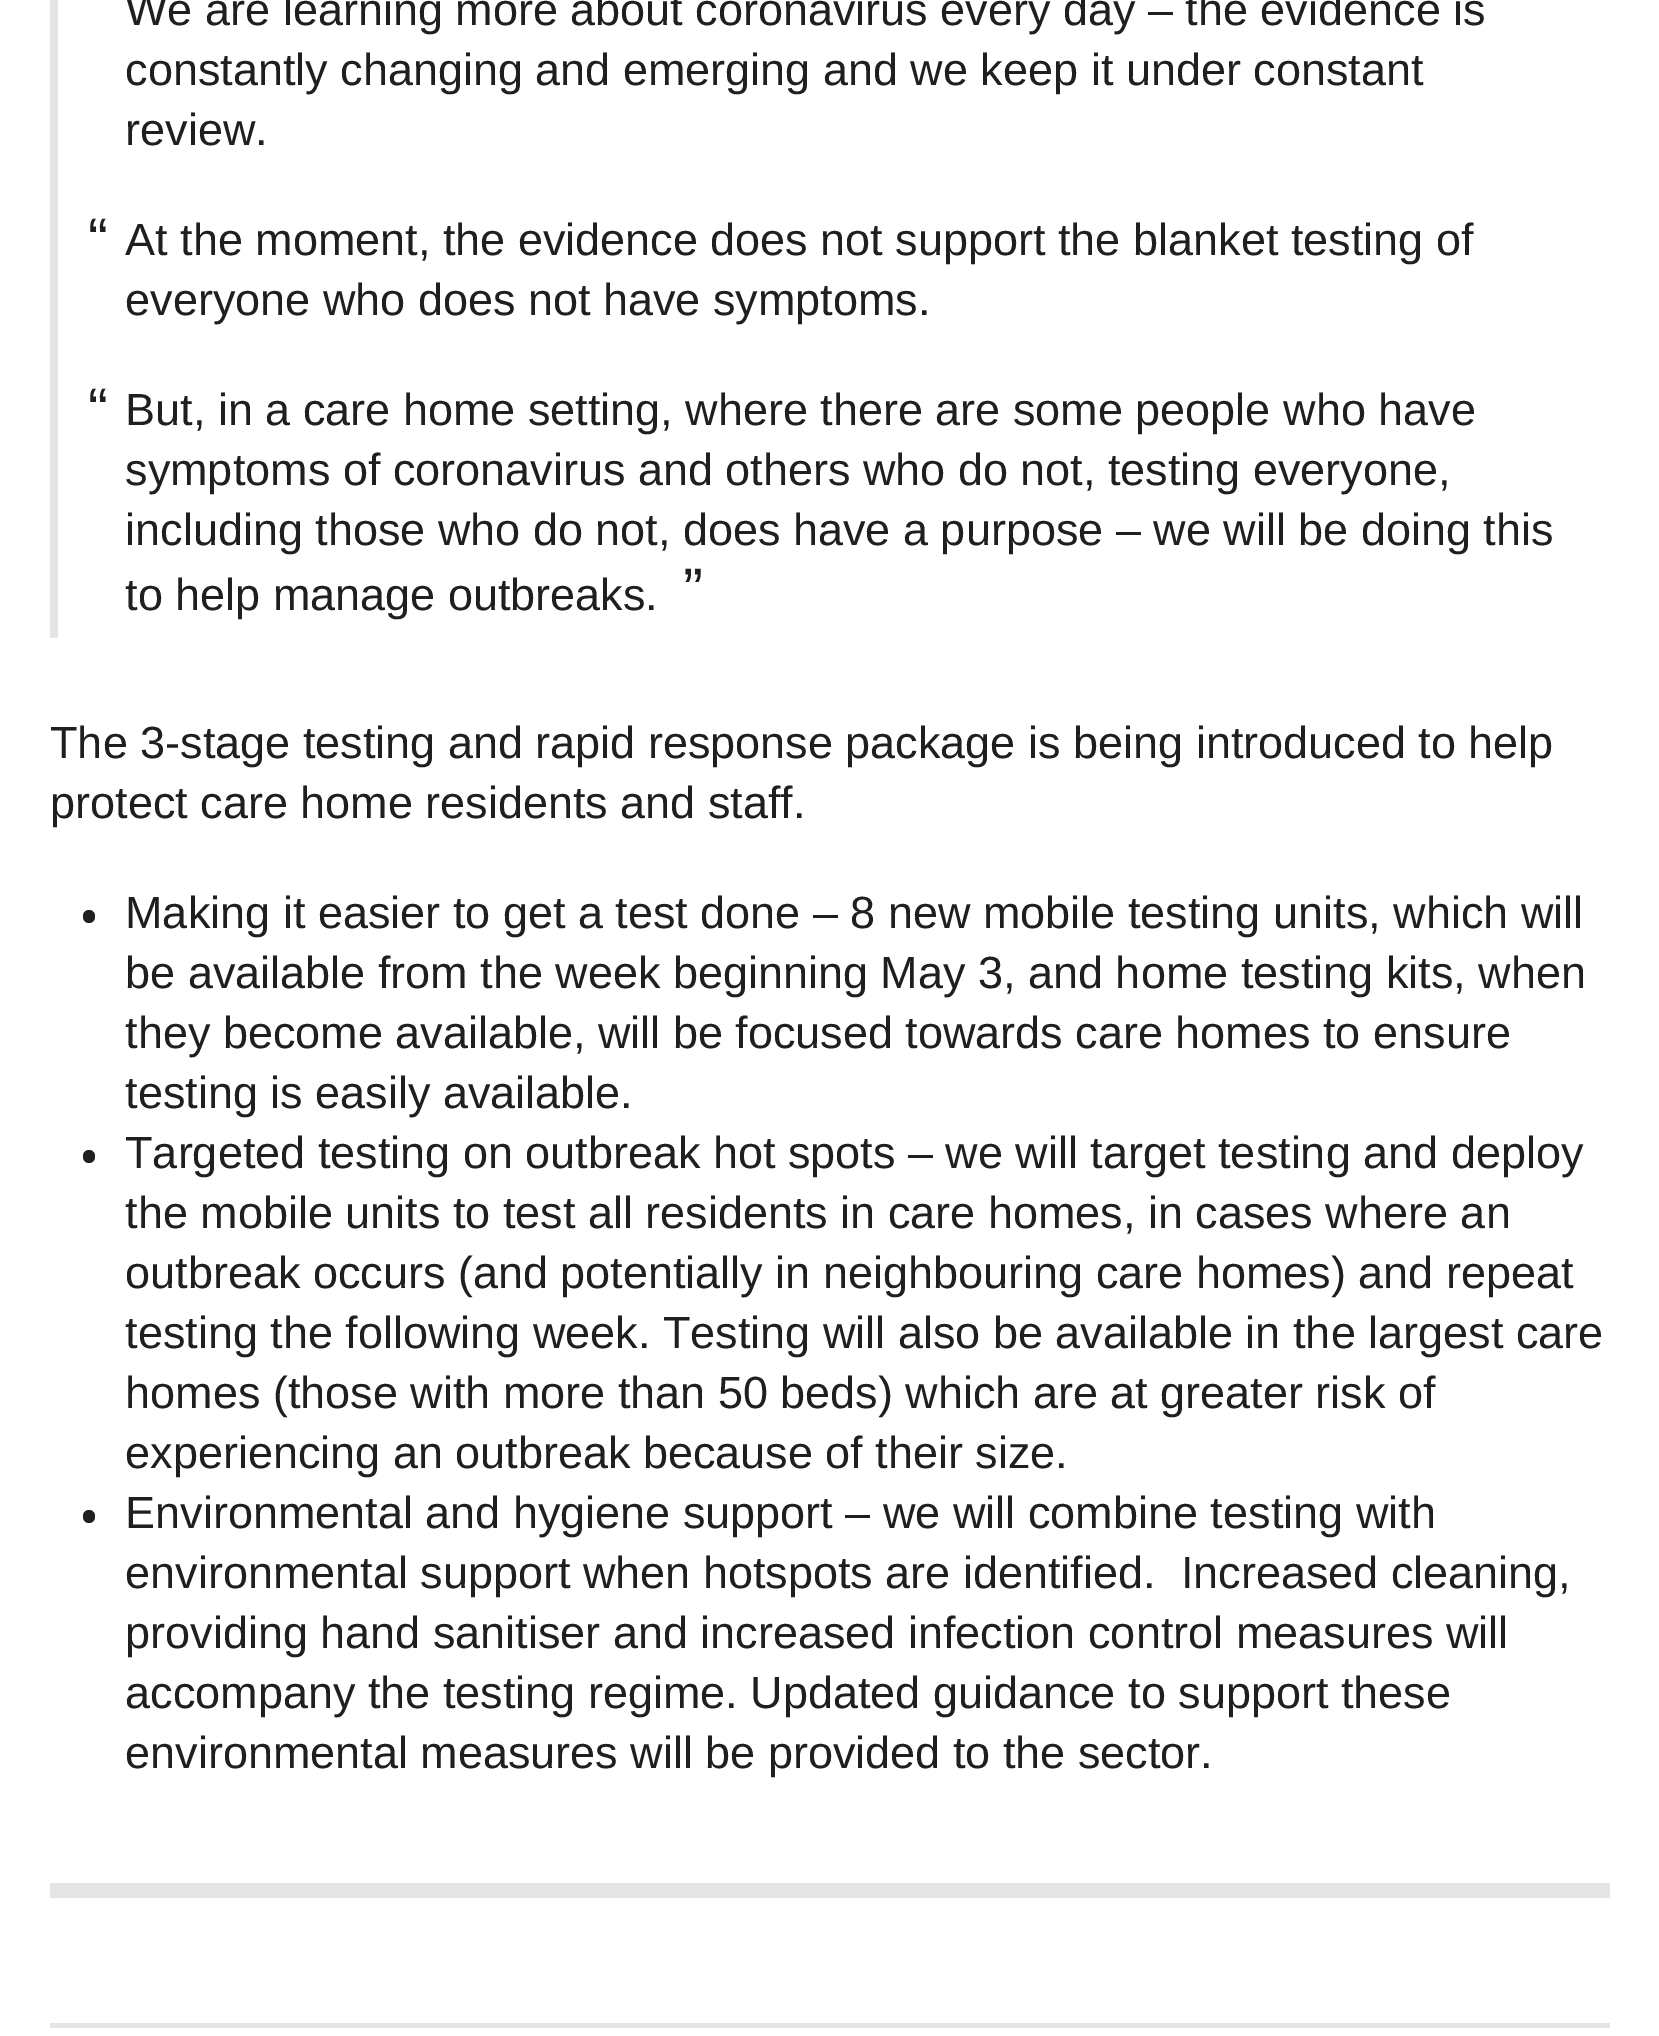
%!PS-Adobe-3.0
%%BoundingBox: 0 0 1659 2036
%%LanguageLevel: 3
%%Pages: 1
%%EndComments
%%BeginProlog
/f { fill } bind def
/fn { [ exch dup neg 0 0 3 -1 roll 0 0 ] selectfont } def
/tx { moveto show } def
/bx { rectfill } def
/rr { 5 dict begin { /r /h /w /y /x } { exch def } forall
  x r add y moveto x w add y 2 copy h add r arct x w add y h add x 1 index r arct
  x y h add x y r arct x y 2 copy exch w add exch r arct closepath end } def
%%EndProlog
%%BeginSetup
<< /PageSize [1659 2036] >> setpagedevice
%%EndSetup
%%Page: 1 1
0 2036 translate 1 -1 scale
4 setmiterlimit
1 setgray
0 0 1659 2036 bx
0.898 setgray
50 0 8 638 bx
/LiberationSans-Regular 45 fn
0.122 setgray
(We are learning more about coronavirus every day – the evidence is) 125 25 tx
(constantly changing and emerging and we keep it under constant) 125 85 tx
(review.) 125 145 tx
/LiberationSans-Regular 60 fn
(“) 88 260 tx
/LiberationSans-Regular 45 fn
(At the moment, the evidence does not support the blanket testing of) 125 255 tx
(everyone who does not have symptoms.) 125 315 tx
/LiberationSans-Regular 60 fn
(“) 88 430 tx
/LiberationSans-Regular 45 fn
(But, in a care home setting, where there are some people who have) 125 425 tx
(symptoms of coronavirus and others who do not, testing everyone,) 125 485 tx
(including those who do not, does have a purpose – we will be doing this) 125 545 tx
/LiberationSans-Regular 60 fn
(”) 683 610 tx
/LiberationSans-Regular 45 fn
(to help manage outbreaks.) 125 610 tx
(The 3-stage testing and rapid response package is being introduced to help) 50 758 tx
(protect care home residents and staff.) 50 818 tx
83 910 12 13 6 rr f
(Making it easier to get a test done – 8 new mobile testing units, which will) 125 928 tx
(be available from the week beginning May 3, and home testing kits, when) 125 988 tx
(they become available, will be focused towards care homes to ensure) 125 1048 tx
(testing is easily available.) 125 1108 tx
83 1150 12 13 6 rr f
(Targeted testing on outbreak hot spots – we will target testing and deploy) 125 1168 tx
(the mobile units to test all residents in care homes, in cases where an) 125 1228 tx
(outbreak occurs \(and potentially in neighbouring care homes\) and repeat) 125 1288 tx
(testing the following week. Testing will also be available in the largest care) 125 1348 tx
(homes \(those with more than 50 beds\) which are at greater risk of) 125 1408 tx
(experiencing an outbreak because of their size.) 125 1468 tx
83 1510 12 13 6 rr f
(Environmental and hygiene support – we will combine testing with) 125 1528 tx
(environmental support when hotspots are identified.  Increased cleaning,) 125 1588 tx
(providing hand sanitiser and increased infection control measures will) 125 1648 tx
(accompany the testing regime. Updated guidance to support these) 125 1708 tx
(environmental measures will be provided to the sector.) 125 1768 tx
0.898 setgray
50 1883 1560 15 bx
50 2023 1560 5 bx
showpage
%%EOF
